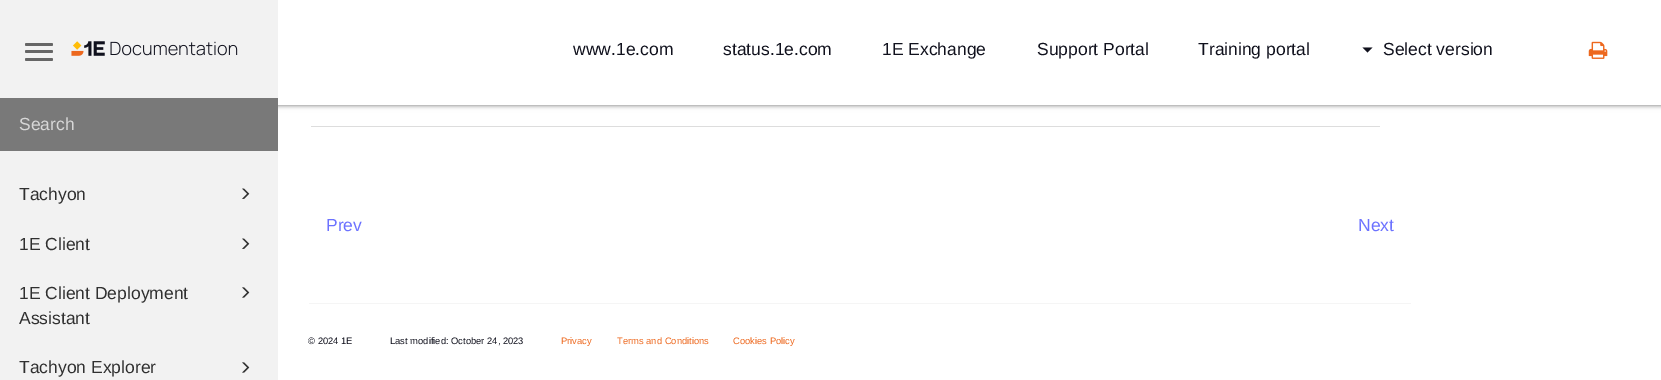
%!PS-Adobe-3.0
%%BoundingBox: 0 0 1661 380
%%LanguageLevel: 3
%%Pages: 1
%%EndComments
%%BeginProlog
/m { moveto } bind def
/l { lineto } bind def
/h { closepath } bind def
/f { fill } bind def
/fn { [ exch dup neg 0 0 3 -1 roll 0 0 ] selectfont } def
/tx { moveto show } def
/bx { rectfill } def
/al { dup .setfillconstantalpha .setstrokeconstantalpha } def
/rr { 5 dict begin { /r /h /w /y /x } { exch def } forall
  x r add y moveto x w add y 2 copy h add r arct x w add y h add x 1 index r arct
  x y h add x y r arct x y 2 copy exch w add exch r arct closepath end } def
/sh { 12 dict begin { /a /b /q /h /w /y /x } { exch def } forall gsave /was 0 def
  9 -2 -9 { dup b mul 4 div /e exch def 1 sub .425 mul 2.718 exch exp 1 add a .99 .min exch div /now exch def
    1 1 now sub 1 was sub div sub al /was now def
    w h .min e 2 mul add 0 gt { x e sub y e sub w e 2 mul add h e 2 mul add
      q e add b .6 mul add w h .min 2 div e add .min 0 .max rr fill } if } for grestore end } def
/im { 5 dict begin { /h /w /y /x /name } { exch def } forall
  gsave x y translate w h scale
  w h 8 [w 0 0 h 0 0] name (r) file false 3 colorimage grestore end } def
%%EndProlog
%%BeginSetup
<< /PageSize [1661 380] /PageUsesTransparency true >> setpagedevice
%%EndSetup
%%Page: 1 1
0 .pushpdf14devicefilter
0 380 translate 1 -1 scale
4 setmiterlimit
1 setgray
0 0 1661 380 bx
0 setgray
-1 -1 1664 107 0 3 0.08 sh
-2 -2 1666 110 0 1 0.1 sh
-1 -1 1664 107 0 0.5 0.14 sh
0.949 setgray
0 0 278 380 bx
0.4 setgray
25 43 28 3 1.5 rr f
25 50 28 3 1.5 rr f
25 58 28 3 1.5 rr f
(image0.raw) 71 41 167 15 im
0.475 setgray
0 98 278 53 bx
/LiberationSans-Regular 17.5 fn
0.843 setgray
(Search) 19 130 tx
0.188 setgray
(Tachyon) 19 200 tx
(image1.raw) 242 188 8 11 im
(1E Client) 19 250 tx
(image1.raw) 242 238 8 11 im
(1E Client Deployment) 19 299 tx
(image2.raw) 242 287 8 11 im
(Assistant) 19 324 tx
(Tachyon Explorer) 19 373 tx
(image2.raw) 242 362 8 11 im
1 setgray
278 0 1383 105 bx
0.063 0.067 0.114 setrgbcolor
(www.1e.com) 573 55 tx
(status.1e.com) 723 55 tx
(1E Exchange) 882 55 tx
(Support Portal) 1037 55 tx
(Training portal) 1198 55 tx
1362.5 47.5 m 1372.5 47.5 l 1367.5 52.5 l h f
(Select version) 1383 55 tx
(image3.raw) 1588 41 20 18 im
0.867 setgray
311 126 1069 1 bx
0.424 0.447 1 setrgbcolor
(Prev) 326 231 tx
(Next) 1358 231 tx
0.961 setgray
309 303 1102 1 bx
/LiberationSans-Regular 9.4 fn
0.063 0.067 0.114 setrgbcolor
(© 2024 1E) 308 344 tx
(Last modified: October 24, 2023) 390 344 tx
0.929 0.408 0.118 setrgbcolor
(Privacy) 561 344 tx
(Terms and Conditions) 617 344 tx
(Cookies Policy) 733 344 tx
.poppdf14devicefilter showpage
%%EOF
